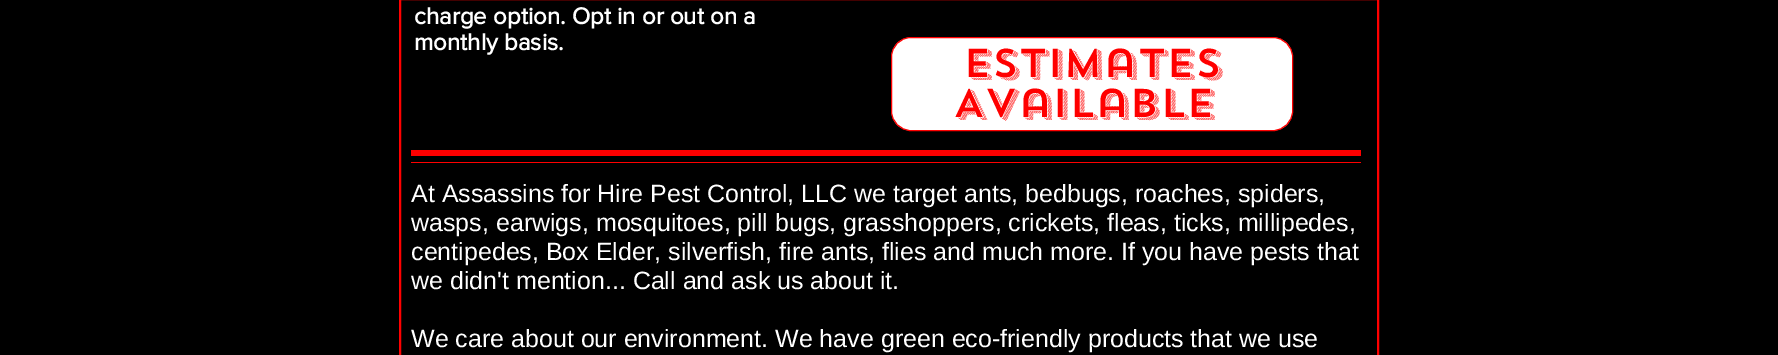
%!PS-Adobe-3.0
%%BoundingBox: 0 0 1778 355
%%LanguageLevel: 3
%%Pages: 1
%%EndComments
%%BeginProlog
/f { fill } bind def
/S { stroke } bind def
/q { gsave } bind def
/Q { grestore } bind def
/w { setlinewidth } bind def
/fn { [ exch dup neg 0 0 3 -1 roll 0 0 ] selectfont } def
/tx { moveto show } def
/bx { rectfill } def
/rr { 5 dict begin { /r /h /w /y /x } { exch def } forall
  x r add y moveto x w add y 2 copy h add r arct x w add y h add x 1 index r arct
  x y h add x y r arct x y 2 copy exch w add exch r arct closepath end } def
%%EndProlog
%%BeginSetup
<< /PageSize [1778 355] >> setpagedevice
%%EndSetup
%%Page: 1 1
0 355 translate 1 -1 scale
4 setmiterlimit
0 setgray
0 0 1778 355 bx
1 0 0 setrgbcolor
2 w
400 -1 978 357 rectstroke
/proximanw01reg-Bold 24 fn
1 setgray
(charge option. Opt in or out on a) 414 24 tx
(monthly basis.) 414 50 tx
891.5 37.5 401 93 19.5 rr q f Q
1 0 0 setrgbcolor
1 w
S
/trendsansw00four-Medium 40 fn
(esTimates) 963 77 tx
(Available) 953 117 tx
411 150 950 6 bx
411 162 950 1 bx
/LiberationSans-Regular 25 fn
1 setgray
(At Assassins for Hire Pest Control, LLC we target ants, bedbugs, roaches, spiders,) 411 202 tx
(wasps, earwigs, mosquitoes, pill bugs, grasshoppers, crickets, fleas, ticks, millipedes,) 411 231 tx
(centipedes, Box Elder, silverfish, fire ants, flies and much more. If you have pests that) 411 260 tx
(we didn't mention... Call and ask us about it.) 411 289 tx
(We care about our environment. We have green eco-friendly products that we use) 411 347 tx
showpage
%%EOF
